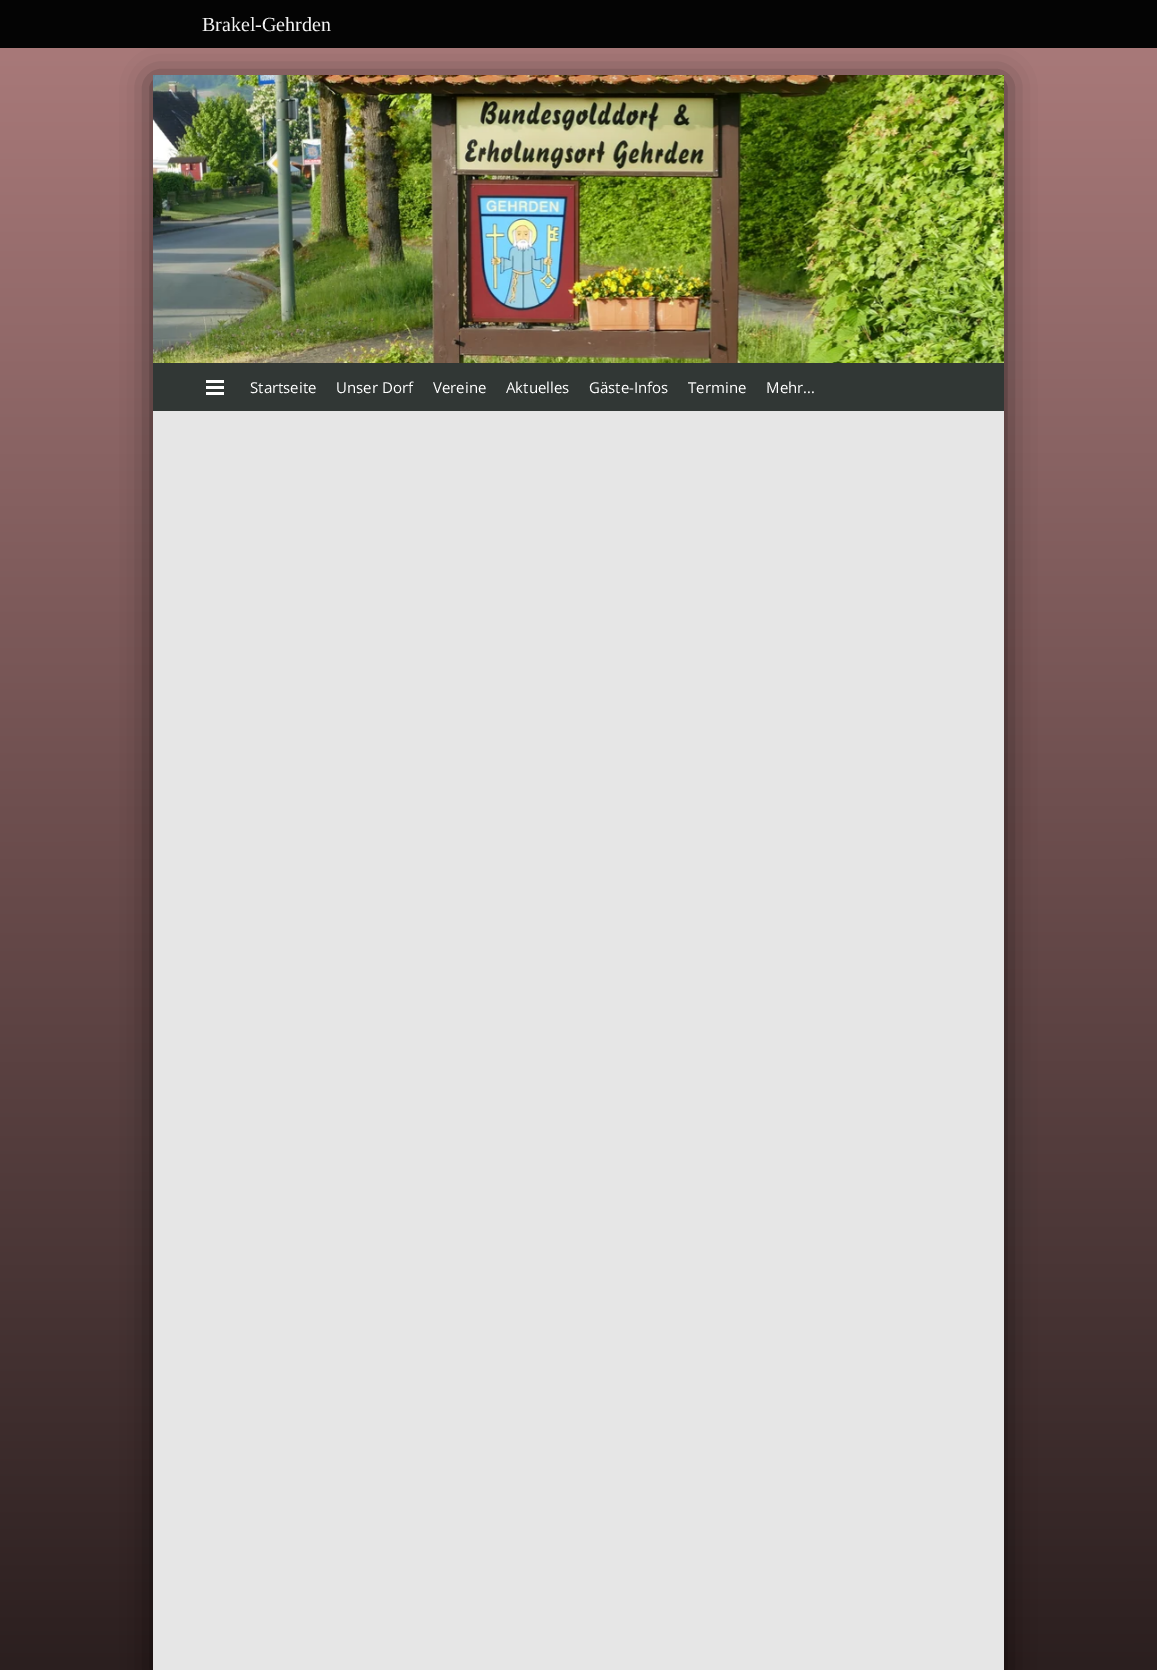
%!PS-Adobe-3.0
%%BoundingBox: 0 0 1157 1670
%%LanguageLevel: 3
%%Pages: 1
%%EndComments
%%BeginProlog
/m { moveto } bind def
/l { lineto } bind def
/h { closepath } bind def
/q { gsave } bind def
/Q { grestore } bind def
/fn { [ exch dup neg 0 0 3 -1 roll 0 0 ] selectfont } def
/tx { moveto show } def
/bx { rectfill } def
/al { dup .setfillconstantalpha .setstrokeconstantalpha } def
/rr { 5 dict begin { /r /h /w /y /x } { exch def } forall
  x r add y moveto x w add y 2 copy h add r arct x w add y h add x 1 index r arct
  x y h add x y r arct x y 2 copy exch w add exch r arct closepath end } def
/sh { 12 dict begin { /a /b /q /h /w /y /x } { exch def } forall gsave /was 0 def
  9 -2 -9 { dup b mul 4 div /e exch def 1 sub .425 mul 2.718 exch exp 1 add a .99 .min exch div /now exch def
    1 1 now sub 1 was sub div sub al /was now def
    w h .min e 2 mul add 0 gt { x e sub y e sub w e 2 mul add h e 2 mul add
      q e add b .6 mul add w h .min 2 div e add .min 0 .max rr fill } if } for grestore end } def
/im { 5 dict begin { /h /w /y /x /name } { exch def } forall
  gsave x y translate w h scale
  w h 8 [w 0 0 h 0 0] name (r) file false 3 colorimage grestore end } def
%%EndProlog
%%BeginSetup
<< /PageSize [1157 1670] /PageUsesTransparency true >> setpagedevice
%%EndSetup
%%Page: 1 1
0 .pushpdf14devicefilter
0 1670 translate 1 -1 scale
4 setmiterlimit
1 setgray
0 0 1157 1670 bx
q 0 48 m 1157 48 l 1157 1670 l 0 1670 l h clip newpath
<< /ShadingType 2 /ColorSpace /DeviceRGB /Coords [578 0 579 1670] /Extend [true true] /Function << /FunctionType 2 /Domain [0 1] /C0 [0.675 0.486 0.486] /C1 [0.169 0.122 0.122] /N 1 >> >> shfill Q
0.902 setgray
153 411 851 1259 bx
q
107 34 m 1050 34 l 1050 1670 l 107 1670 l h 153 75 m 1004 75 l 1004 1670 l 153 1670 l h eoclip newpath
0 setgray
153 80 851 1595 0 15 0.62 sh
Q
0.016 setgray
0 0 1157 48 bx
/LiberationSerif-Regular 20 fn
0.953 setgray
(Brakel-Gehrden) 202 31 tx
(image0.raw) 153 75 851 288 im
(image1.raw) 1003 75 1 288 im
0.192 0.216 0.208 setrgbcolor
153 363 851 48 bx
1 setgray
206 380 18 3 bx
206 386 18 3 bx
206 392 18 3 bx
/OpenSans-Regular 15 fn
(Startseite) 250 393 tx
(Unser Dorf) 336 393 tx
(Vereine) 433 393 tx
(Aktuelles) 506 393 tx
(Gäste-Infos) 589 393 tx
(Termine) 688 393 tx
(Mehr...) 766 393 tx
.poppdf14devicefilter showpage
%%EOF
